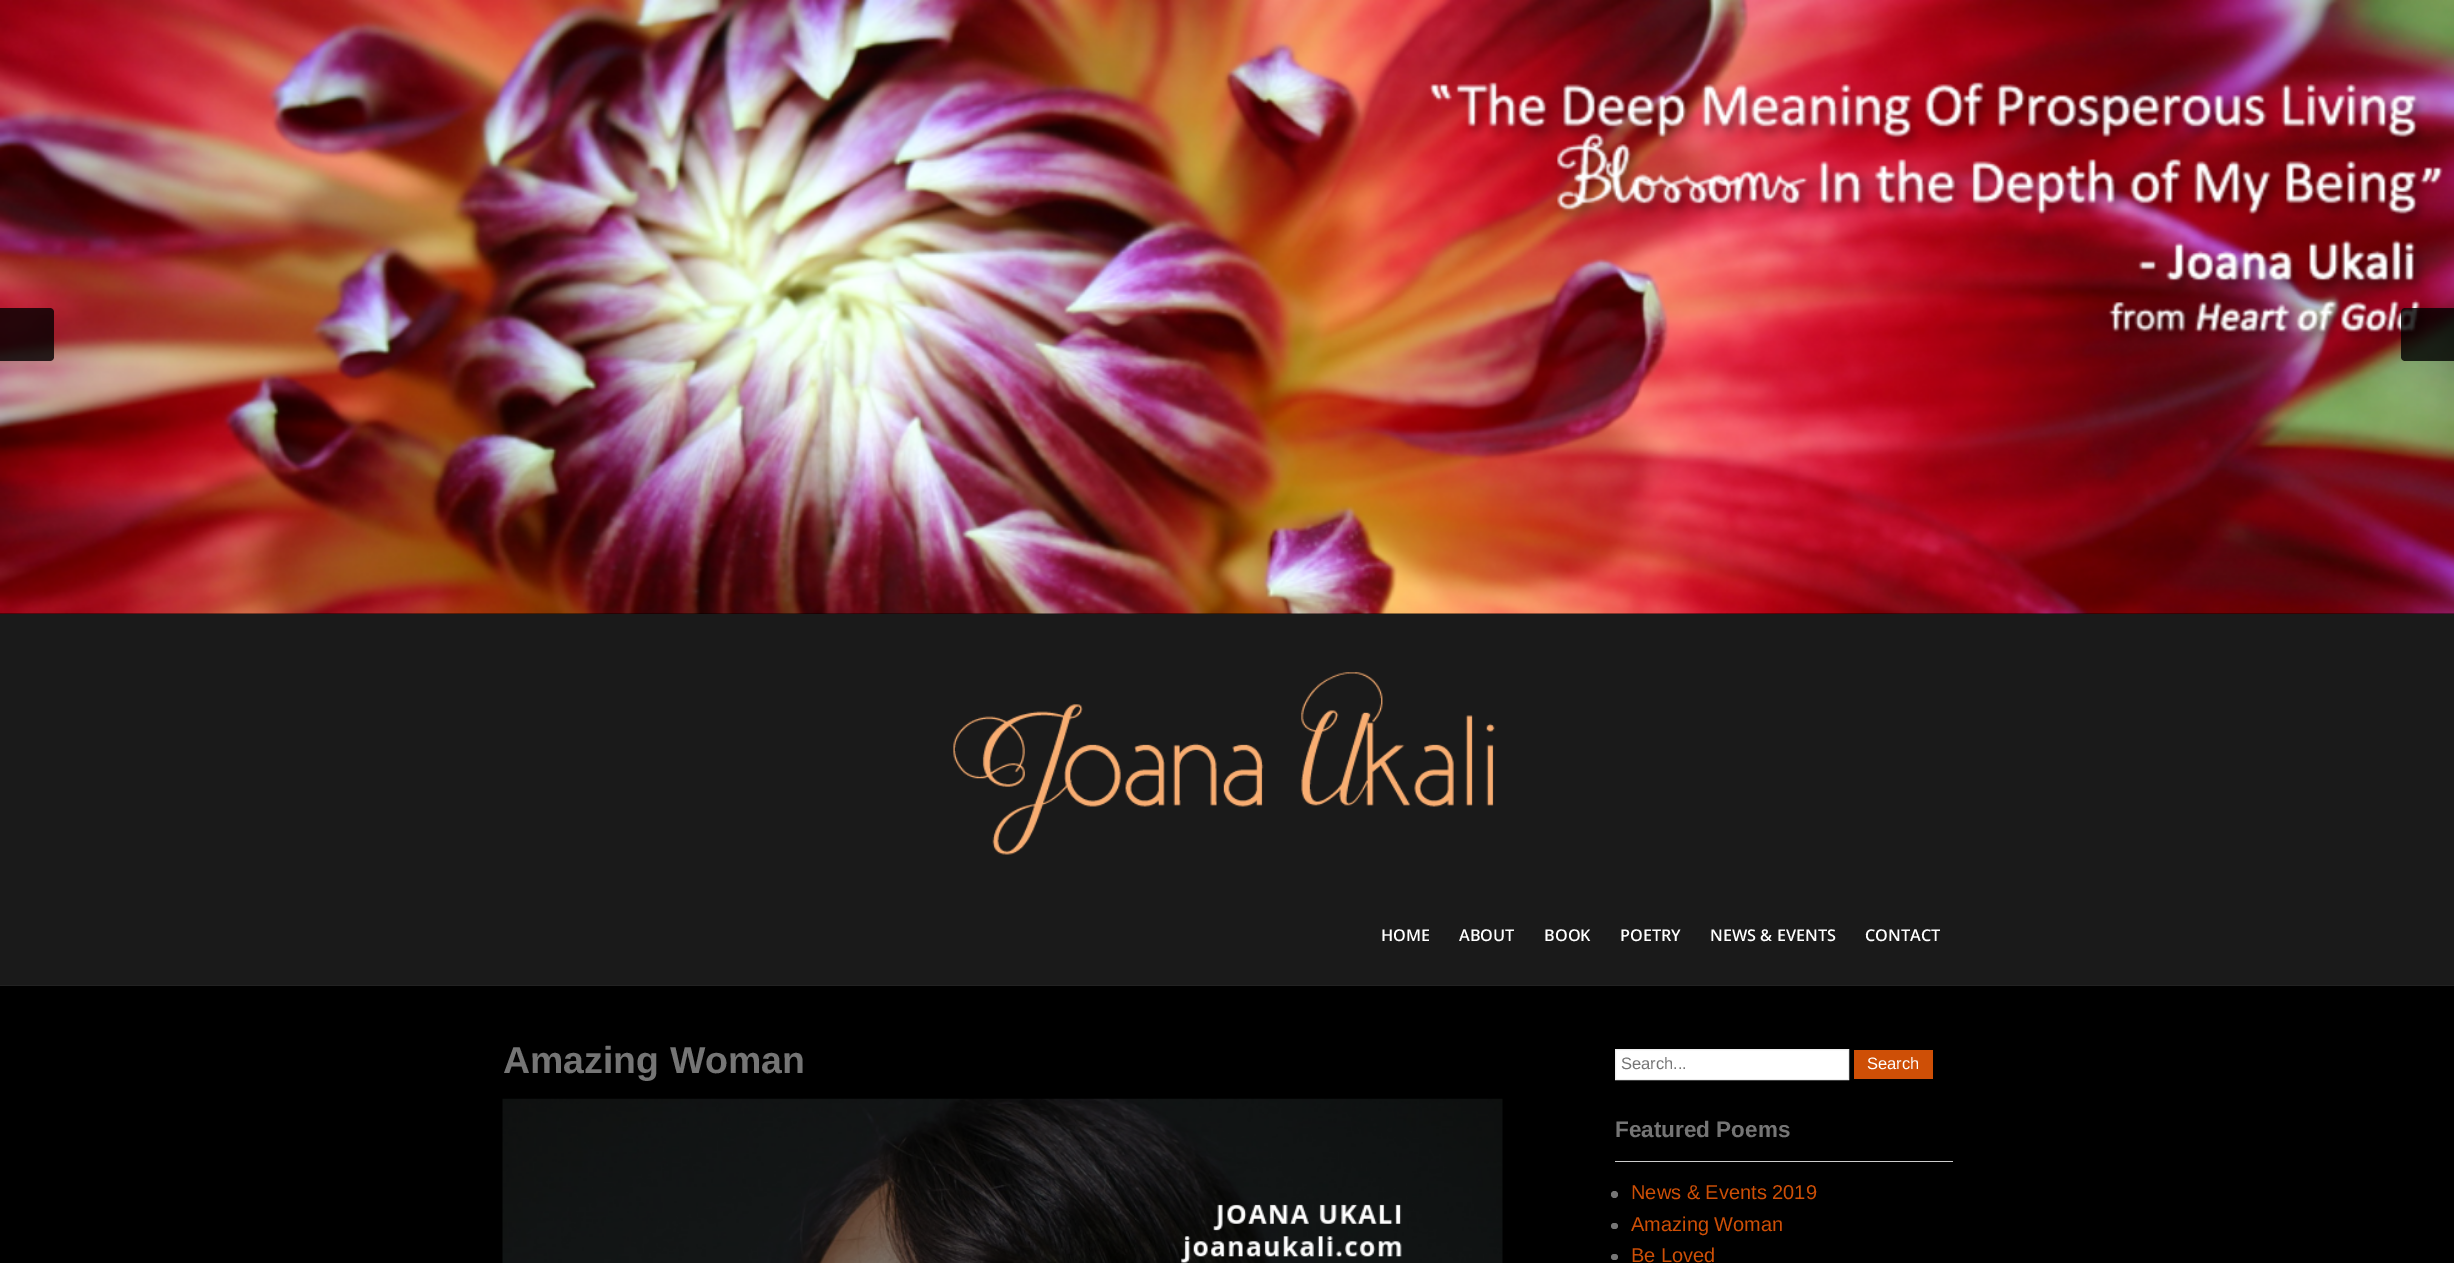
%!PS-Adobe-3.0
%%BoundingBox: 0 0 2454 1263
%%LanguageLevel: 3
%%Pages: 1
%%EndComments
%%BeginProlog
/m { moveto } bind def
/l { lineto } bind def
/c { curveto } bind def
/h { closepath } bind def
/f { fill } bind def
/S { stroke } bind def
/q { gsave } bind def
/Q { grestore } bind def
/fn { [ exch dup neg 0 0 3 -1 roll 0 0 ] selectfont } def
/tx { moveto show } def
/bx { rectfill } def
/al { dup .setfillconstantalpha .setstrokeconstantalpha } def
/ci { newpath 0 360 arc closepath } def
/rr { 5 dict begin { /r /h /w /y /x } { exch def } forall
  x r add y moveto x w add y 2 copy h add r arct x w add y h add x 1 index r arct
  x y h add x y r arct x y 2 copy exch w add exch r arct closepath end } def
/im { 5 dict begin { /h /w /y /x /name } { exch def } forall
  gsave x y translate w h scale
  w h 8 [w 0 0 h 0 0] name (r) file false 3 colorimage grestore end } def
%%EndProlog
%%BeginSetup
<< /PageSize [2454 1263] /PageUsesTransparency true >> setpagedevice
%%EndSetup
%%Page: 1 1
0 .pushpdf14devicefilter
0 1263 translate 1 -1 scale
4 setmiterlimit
0 setgray
0 0 2454 1263 bx
(image0.raw) 0 0 2454 614 im
0.8 al
0 308 m 50 308 l 52 308 54 310 54 312 c 54 357 l 54 359 52 361 50 361 c 0 361 l h f
2405 308 m 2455 308 l 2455 361 l 2405 361 l 2403 361 2401 359 2401 357 c 2401 312 l 2401 310 2403 308 2405 308 c h f
1 al
0.102 setgray
0 614 2454 371 bx
0.133 setgray
0 985 2454 1 bx
(image1.raw) 953 672 542 183 im
/OpenSans-SemiBold 16.25 fn
1 setgray
(HOME) 1381 941 tx
(ABOUT) 1459 941 tx
(BOOK) 1544 941 tx
(POETRY) 1620 941 tx
(NEWS & EVENTS) 1710 941 tx
(CONTACT) 1865 941 tx
/LiberationSans-Bold 37.5 fn
0.459 setgray
(Amazing Woman) 503 1073 tx
(image2.raw) 502 1098 1001 165 im
1 setgray
1615.5 1049.5 m 1848.5 1049.5 l 1848.5 1079.5 l 1615.5 1079.5 l h q f Q
0.933 setgray
S
/LiberationSans-Regular 16.5 fn
0.459 setgray
(Search...) 1621 1069 tx
0.808 0.31 0.024 setrgbcolor
1854 1050 79 29 bx
1 setgray
(Search) 1867 1069 tx
0.8 setgray
1615 1161 338 1 bx
/LiberationSans-Bold 22.5 fn
0.459 setgray
(Featured Poems) 1615 1137 tx
1614.5 1194.5 3.5 ci f
/LiberationSans-Regular 20 fn
0.808 0.31 0.024 setrgbcolor
(News & Events 2019) 1631 1199 tx
0.459 setgray
1611 1223 7 6 3 rr f
0.808 0.31 0.024 setrgbcolor
(Amazing Woman) 1631 1231 tx
0.459 setgray
1611 1254 7 6 3 rr f
0.808 0.31 0.024 setrgbcolor
(Be Loved) 1631 1262 tx
.poppdf14devicefilter showpage
%%EOF
